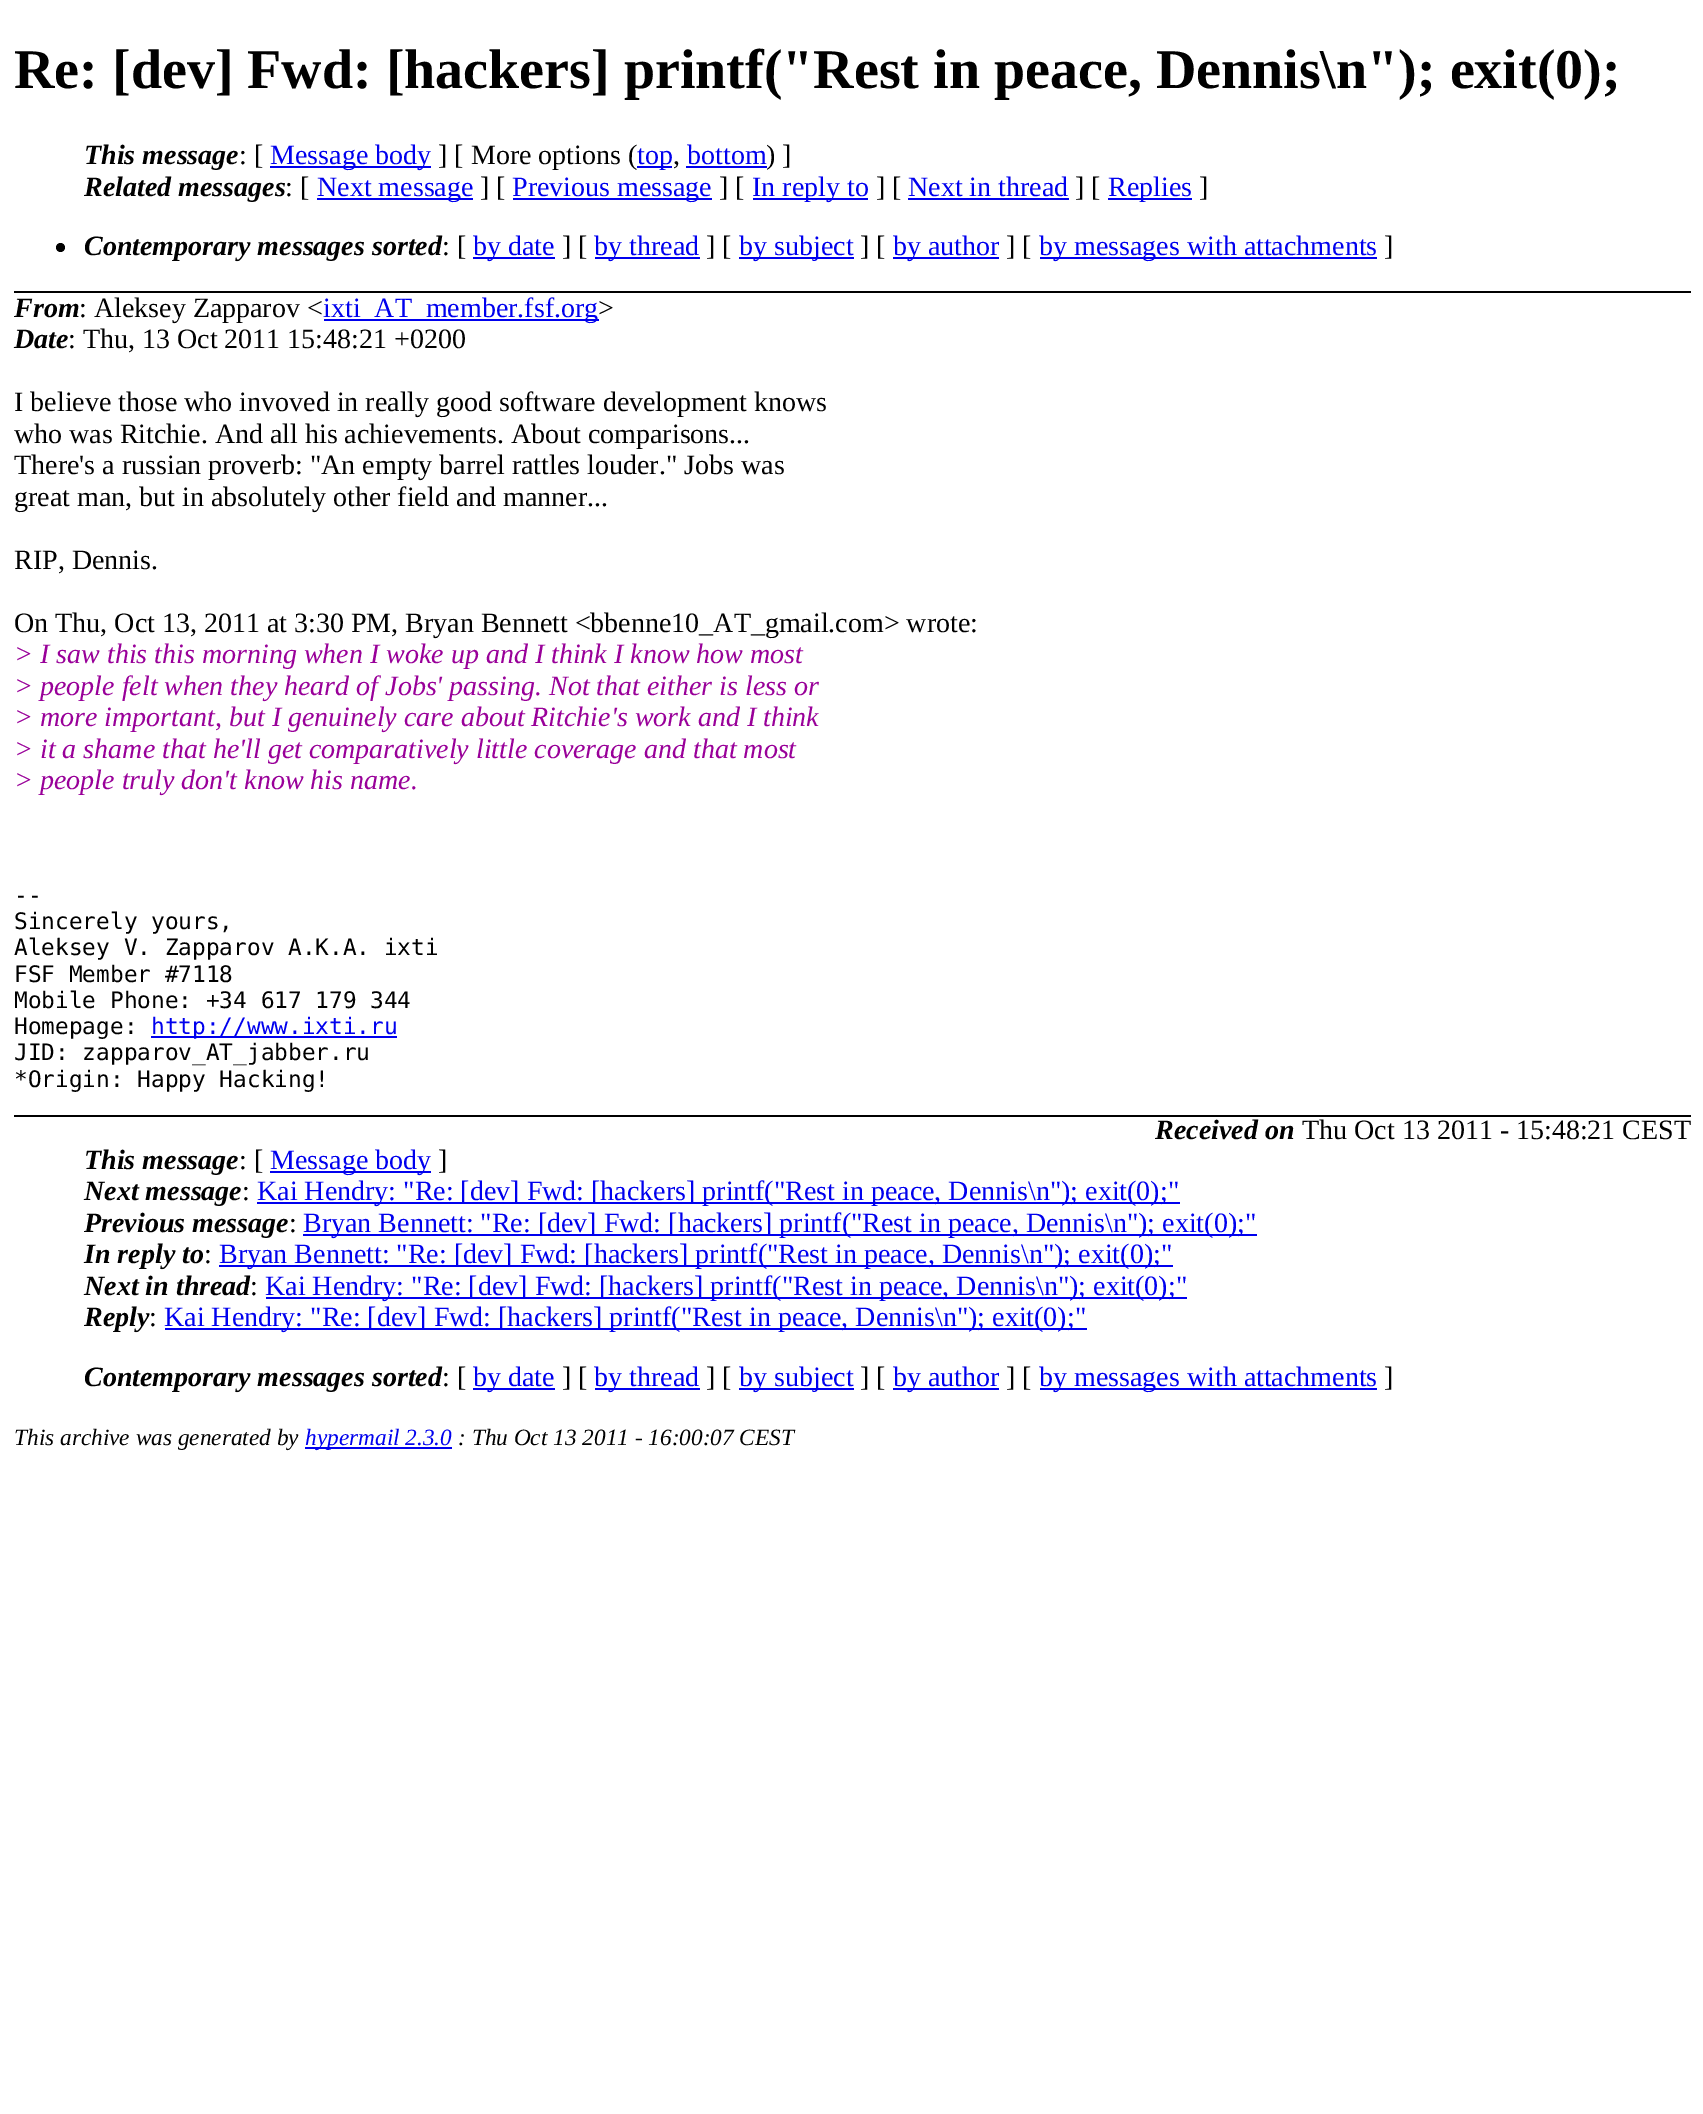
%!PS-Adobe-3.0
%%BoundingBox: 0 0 1703 2114
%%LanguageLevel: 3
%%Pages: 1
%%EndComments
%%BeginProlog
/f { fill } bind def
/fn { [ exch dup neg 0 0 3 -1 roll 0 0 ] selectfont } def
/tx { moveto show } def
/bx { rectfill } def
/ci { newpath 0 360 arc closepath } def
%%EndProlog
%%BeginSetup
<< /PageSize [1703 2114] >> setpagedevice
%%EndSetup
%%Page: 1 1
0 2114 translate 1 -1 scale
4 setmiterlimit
1 setgray
0 0 1703 2114 bx
0 setgray
14 291 1677 2 bx
/LiberationSerif-Bold 56 fn
(Re: [dev] Fwd: [hackers] printf\("Rest in peace, Dennis\\n"\); exit\(0\);) 14 88 tx
/LiberationSerif-BoldItalic 28 fn
(This message) 84 164 tx
/LiberationSerif-Regular 28 fn
(: [) 239 164 tx
0 0 0.933 setrgbcolor
270 166 161 2 bx
(Message body) 270 164 tx
0 setgray
(] [ More options \() 438 164 tx
0 0 0.933 setrgbcolor
637 166 35 2 bx
(top) 637 164 tx
0 setgray
(,) 673 164 tx
0 0 0.933 setrgbcolor
(bottom) 687 164 tx
686 166 81 2 bx
0 setgray
(\) ]) 766 164 tx
/LiberationSerif-BoldItalic 28 fn
(Related messages) 84 196 tx
/LiberationSerif-Regular 28 fn
(: [) 285 196 tx
0 0 0.933 setrgbcolor
317 198 156 2 bx
(Next message) 317 196 tx
0 setgray
(] [) 480 196 tx
0 0 0.933 setrgbcolor
513 198 199 2 bx
(Previous message) 512 196 tx
0 setgray
(] [) 719 196 tx
0 0 0.933 setrgbcolor
753 198 115 2 bx
(In reply to) 752 196 tx
0 setgray
(] [) 876 196 tx
0 0 0.933 setrgbcolor
(Next in thread) 908 196 tx
908 198 161 2 bx
0 setgray
(] [) 1075 196 tx
0 0 0.933 setrgbcolor
1108 198 84 2 bx
(Replies) 1108 196 tx
0 setgray
(]) 1199 196 tx
60.5 247.5 4.5 ci f
/LiberationSerif-BoldItalic 28 fn
(Contemporary messages sorted) 84 255 tx
/LiberationSerif-Regular 28 fn
(: [) 442 255 tx
0 0 0.933 setrgbcolor
473 257 82 2 bx
(by date) 473 255 tx
0 setgray
(] [) 562 255 tx
0 0 0.933 setrgbcolor
595 257 105 2 bx
(by thread) 594 255 tx
0 setgray
(] [) 706 255 tx
0 0 0.933 setrgbcolor
739 257 115 2 bx
(by subject) 739 255 tx
0 setgray
(] [) 860 255 tx
0 0 0.933 setrgbcolor
893 257 106 2 bx
(by author) 893 255 tx
0 setgray
(] [) 1006 255 tx
0 0 0.933 setrgbcolor
1040 257 337 2 bx
(by messages with attachments) 1039 255 tx
0 setgray
(]) 1384 255 tx
/LiberationSerif-BoldItalic 28 fn
(From) 14 317 tx
/LiberationSerif-Regular 28 fn
(: Aleksey Zapparov <) 79 317 tx
0 0 0.933 setrgbcolor
324 319 275 2 bx
(ixti_AT_member.fsf.org) 323 317 tx
0 setgray
(>) 598 317 tx
/LiberationSerif-BoldItalic 28 fn
(Date) 14 348 tx
/LiberationSerif-Regular 28 fn
(: Thu, 13 Oct 2011 15:48:21 +0200) 68 348 tx
(I believe those who invoved in really good software development knows) 14 411 tx
(who was Ritchie. And all his achievements. About comparisons...) 14 443 tx
(There's a russian proverb: "An empty barrel rattles louder." Jobs was) 14 474 tx
(great man, but in absolutely other field and manner...) 14 506 tx
(RIP, Dennis.) 14 569 tx
(On Thu, Oct 13, 2011 at 3:30 PM, Bryan Bennett <bbenne10_AT_gmail.com> wrote:) 14 632 tx
/LiberationSerif-Italic 28 fn
0.6 0 0.6 setrgbcolor
(> I saw this this morning when I woke up and I think I know how most) 14 663 tx
(> people felt when they heard of Jobs' passing. Not that either is less or) 14 695 tx
(> more important, but I genuinely care about Ritchie's work and I think) 14 726 tx
(> it a shame that he'll get comparatively little coverage and that most) 14 758 tx
(> people truly don't know his name.) 14 789 tx
/DejaVuSansMono-Regular 22.75 fn
0 setgray
(--) 14 903 tx
(Sincerely yours,) 14 929 tx
(Aleksey V. Zapparov A.K.A. ixti) 14 955 tx
(FSF Member #7118) 14 982 tx
(Mobile Phone: +34 617 179 344) 14 1008 tx
(Homepage:) 14 1034 tx
0 0 0.933 setrgbcolor
151 1036 246 2 bx
(http://www.ixti.ru) 151 1034 tx
0 setgray
(JID: zapparov_AT_jabber.ru) 14 1060 tx
(*Origin: Happy Hacking!) 14 1087 tx
/LiberationSerif-BoldItalic 28 fn
(Received on) 1155 1139 tx
/LiberationSerif-Regular 28 fn
(Thu Oct 13 2011 - 15:48:21 CEST) 1302 1139 tx
14 1115 1677 2 bx
/LiberationSerif-BoldItalic 28 fn
(This message) 84 1169 tx
/LiberationSerif-Regular 28 fn
(: [) 239 1169 tx
0 0 0.933 setrgbcolor
270 1171 161 2 bx
(Message body) 270 1169 tx
0 setgray
(]) 438 1169 tx
/LiberationSerif-BoldItalic 28 fn
(Next message) 84 1200 tx
/LiberationSerif-Regular 28 fn
(:) 242 1200 tx
0 0 0.933 setrgbcolor
257 1202 923 2 bx
(Kai Hendry: "Re: [dev] Fwd: [hackers] printf\("Rest in peace, Dennis\\n"\); exit\(0\);") 257 1200 tx
/LiberationSerif-BoldItalic 28 fn
0 setgray
(Previous message) 84 1232 tx
/LiberationSerif-Regular 28 fn
(:) 289 1232 tx
0 0 0.933 setrgbcolor
303 1234 954 2 bx
(Bryan Bennett: "Re: [dev] Fwd: [hackers] printf\("Rest in peace, Dennis\\n"\); exit\(0\);") 303 1232 tx
/LiberationSerif-BoldItalic 28 fn
0 setgray
(In reply to) 84 1263 tx
/LiberationSerif-Regular 28 fn
(:) 204 1263 tx
0 0 0.933 setrgbcolor
219 1265 954 2 bx
(Bryan Bennett: "Re: [dev] Fwd: [hackers] printf\("Rest in peace, Dennis\\n"\); exit\(0\);") 219 1263 tx
/LiberationSerif-BoldItalic 28 fn
0 setgray
(Next in thread) 84 1295 tx
/LiberationSerif-Regular 28 fn
(:) 250 1295 tx
0 0 0.933 setrgbcolor
266 1297 921 2 bx
(Kai Hendry: "Re: [dev] Fwd: [hackers] printf\("Rest in peace, Dennis\\n"\); exit\(0\);") 265 1295 tx
/LiberationSerif-BoldItalic 28 fn
0 setgray
(Reply) 84 1326 tx
/LiberationSerif-Regular 28 fn
(:) 149 1326 tx
0 0 0.933 setrgbcolor
165 1328 922 2 bx
(Kai Hendry: "Re: [dev] Fwd: [hackers] printf\("Rest in peace, Dennis\\n"\); exit\(0\);") 164 1326 tx
/LiberationSerif-BoldItalic 28 fn
0 setgray
(Contemporary messages sorted) 84 1386 tx
/LiberationSerif-Regular 28 fn
(: [) 442 1386 tx
0 0 0.933 setrgbcolor
473 1388 82 2 bx
(by date) 473 1386 tx
0 setgray
(] [) 562 1386 tx
0 0 0.933 setrgbcolor
595 1388 105 2 bx
(by thread) 594 1386 tx
0 setgray
(] [) 706 1386 tx
0 0 0.933 setrgbcolor
739 1388 115 2 bx
(by subject) 739 1386 tx
0 setgray
(] [) 860 1386 tx
0 0 0.933 setrgbcolor
893 1388 106 2 bx
(by author) 893 1386 tx
0 setgray
(] [) 1006 1386 tx
0 0 0.933 setrgbcolor
1040 1388 337 2 bx
(by messages with attachments) 1039 1386 tx
0 setgray
(]) 1384 1386 tx
/LiberationSerif-Italic 23.3 fn
(This archive was generated by) 14 1445 tx
0 0 0.933 setrgbcolor
305 1447 147 2 bx
(hypermail 2.3.0) 305 1445 tx
0 setgray
(: Thu Oct 13 2011 - 16:00:07 CEST) 458 1445 tx
showpage
%%EOF
